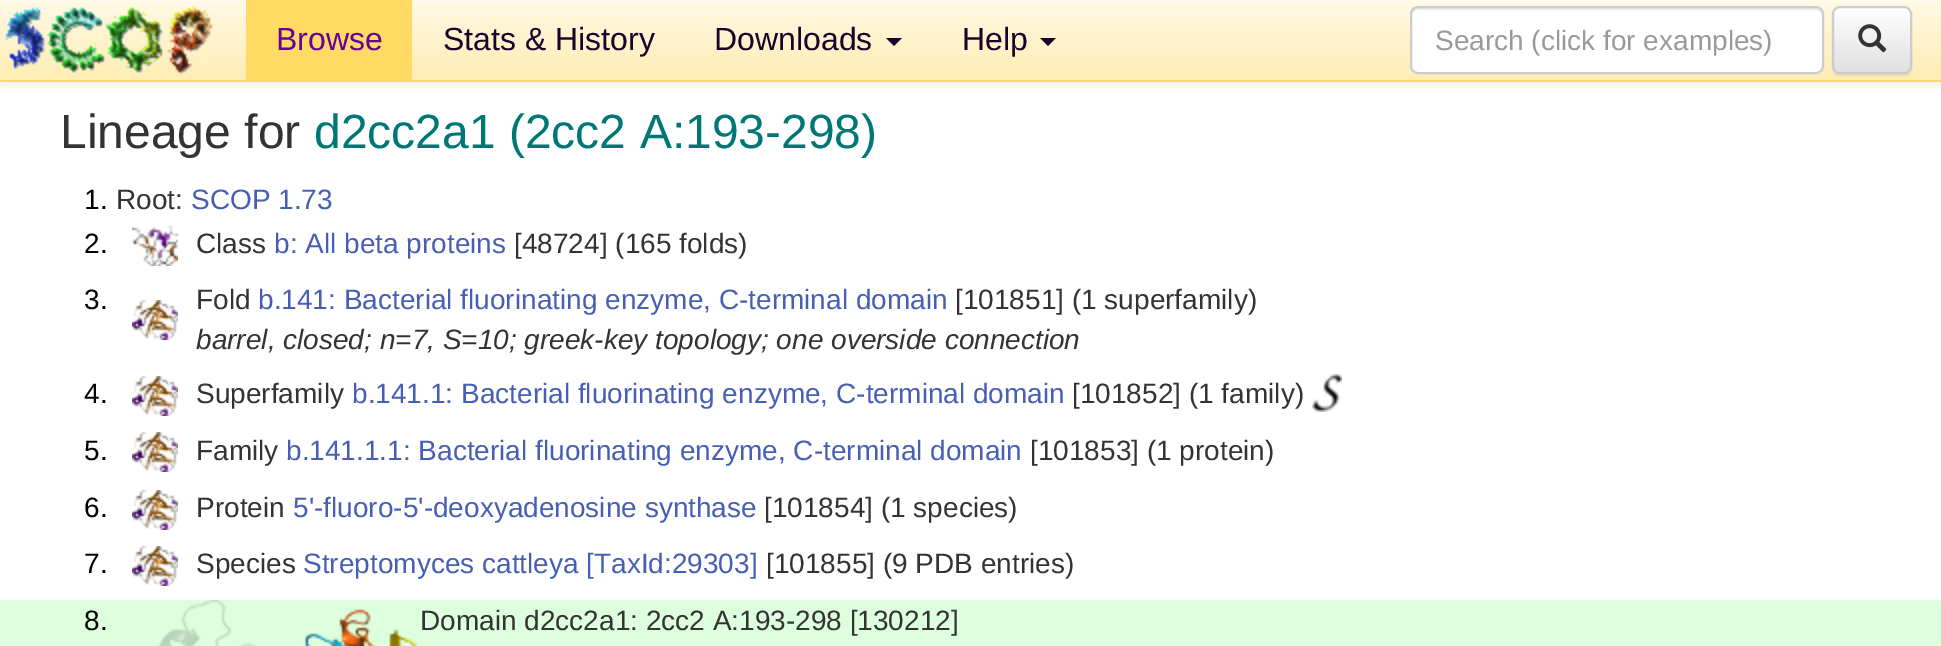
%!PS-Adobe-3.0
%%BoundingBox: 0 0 1941 646
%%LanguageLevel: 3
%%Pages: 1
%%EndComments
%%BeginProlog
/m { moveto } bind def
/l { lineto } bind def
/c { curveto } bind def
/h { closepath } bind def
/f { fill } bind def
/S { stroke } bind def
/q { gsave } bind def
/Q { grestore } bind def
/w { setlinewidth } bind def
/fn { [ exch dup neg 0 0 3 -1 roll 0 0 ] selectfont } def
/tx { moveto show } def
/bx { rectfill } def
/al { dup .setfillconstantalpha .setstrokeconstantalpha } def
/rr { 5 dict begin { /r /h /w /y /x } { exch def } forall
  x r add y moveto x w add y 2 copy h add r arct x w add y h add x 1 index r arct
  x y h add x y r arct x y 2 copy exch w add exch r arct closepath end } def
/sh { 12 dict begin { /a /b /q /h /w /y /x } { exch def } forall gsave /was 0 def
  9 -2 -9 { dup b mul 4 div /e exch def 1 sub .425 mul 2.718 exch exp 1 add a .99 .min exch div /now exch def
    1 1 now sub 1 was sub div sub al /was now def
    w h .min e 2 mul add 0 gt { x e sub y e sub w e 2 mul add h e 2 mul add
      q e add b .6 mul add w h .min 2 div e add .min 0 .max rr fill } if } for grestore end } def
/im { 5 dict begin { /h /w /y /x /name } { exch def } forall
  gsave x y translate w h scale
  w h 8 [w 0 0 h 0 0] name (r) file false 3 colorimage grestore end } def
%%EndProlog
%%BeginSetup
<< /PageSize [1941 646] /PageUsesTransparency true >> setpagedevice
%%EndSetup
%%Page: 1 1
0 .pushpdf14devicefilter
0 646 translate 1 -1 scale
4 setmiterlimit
1 setgray
0 0 1941 646 bx
0 setgray
0 2 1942 82 0 5 0.07 sh
q 0 2 m 1941 2 l 1941 80 l 0 80 l h clip newpath
<< /ShadingType 2 /ColorSpace /DeviceRGB /Coords [971 0 971 80] /Extend [true true] /Function << /FunctionType 2 /Domain [0 1] /C0 [1 0.976 0.902] /C1 [1 0.929 0.702] /N 1 >> >> shfill Q
1 0.98 0.914 setrgbcolor
0 0 1941 2 bx
1 0.855 0.396 setrgbcolor
0 80 1941 2 bx
(image0.raw) 5 5 208 70 im
246 0 166 80 bx
/LiberationSans-Regular 32 fn
0.4 0 0.6 setrgbcolor
(Browse) 276 50 tx
0.114 0 0.169 setrgbcolor
(Stats & History) 443 50 tx
(Downloads) 714 50 tx
886 38 m 902 38 l 894 46 l h f
(Help) 962 50 tx
1040 38 m 1056 38 l 1048 46 l h f
1 setgray
1410 6 414 68 8 rr f
0.925 setgray
1418 10 m 1816 10 l 1819 10 1822 13 1822 16 c 1822 12 1821 8 1816 8 c 1418 8 l 1413 8 1412 12 1412 16 c 1412 13 1415 10 1418 10 c h f
0.8 setgray
2 w
1411 7 412 66 7 rr S
/LiberationSans-Regular 28 fn
0.6 setgray
(Search \(click for examples\)) 1435 50 tx
0 setgray
1832 8 80 68 8 1 0.07 sh
q
1832 6 80 68 8 rr clip newpath
q 1832 8 m 1912 8 l 1912 72 l 1832 72 l h clip newpath
<< /ShadingType 2 /ColorSpace /DeviceRGB /Coords [1872 8 1872 72] /Extend [true true] /Function << /FunctionType 2 /Domain [0 1] /C0 [1 1 1] /C1 [0.878 0.878 0.878] /N 1 >> >> shfill Q
Q
1 setgray
1840 10 m 1904 10 l 1907 10 1910 13 1910 16 c 1910 6 1902 8 1893 8 c 1851 8 l 1842 8 1834 6 1834 16 c 1834 13 1837 10 1840 10 c h f
0.8 setgray
1833 7 78 66 7 rr S
(image1.raw) 1858 24 29 29 im
/LiberationSans-Regular 48 fn
0.2 setgray
(Lineage for) 60 148 tx
0 0.467 0.467 setrgbcolor
(d2cc2a1 \(2cc2 A:193-298\)) 314 148 tx
/LiberationSans-Regular 28 fn
0 setgray
(1.) 84 209 tx
0.2 setgray
(Root:) 116 209 tx
0.275 0.369 0.706 setrgbcolor
(SCOP 1.73) 191 209 tx
0 setgray
(2.) 84 253 tx
(image2.raw) 132 226 46 40 im
0.2 setgray
(Class) 196 253 tx
0.275 0.369 0.706 setrgbcolor
(b: All beta proteins) 274 253 tx
0.2 setgray
([48724] \(165 folds\)) 514 253 tx
0 setgray
(3.) 84 309 tx
(image3.raw) 132 300 46 40 im
0.2 setgray
(Fold) 196 309 tx
0.275 0.369 0.706 setrgbcolor
(b.141: Bacterial fluorinating enzyme, C-terminal domain) 258 309 tx
0.2 setgray
([101851] \(1 superfamily\)) 955 309 tx
/LiberationSans-Italic 28 fn
(barrel, closed; n=7, S=10; greek-key topology; one overside connection) 196 349 tx
/LiberationSans-Regular 28 fn
0 setgray
(4.) 84 403 tx
(image3.raw) 132 376 46 40 im
0.2 setgray
(Superfamily) 196 403 tx
0.275 0.369 0.706 setrgbcolor
(b.141.1: Bacterial fluorinating enzyme, C-terminal domain) 352 403 tx
0.2 setgray
([101852] \(1 family\)) 1072 403 tx
(image4.raw) 1312 374 30 38 im
0 setgray
(5.) 84 460 tx
(image3.raw) 132 432 46 40 im
0.2 setgray
(Family) 196 460 tx
0.275 0.369 0.706 setrgbcolor
(b.141.1.1: Bacterial fluorinating enzyme, C-terminal domain) 286 460 tx
0.2 setgray
([101853] \(1 protein\)) 1030 460 tx
0 setgray
(6.) 84 517 tx
(image3.raw) 132 490 46 40 im
0.2 setgray
(Protein) 196 517 tx
0.275 0.369 0.706 setrgbcolor
(5'-fluoro-5'-deoxyadenosine synthase) 293 517 tx
0.2 setgray
([101854] \(1 species\)) 764 517 tx
0 setgray
(7.) 84 573 tx
(image3.raw) 132 546 46 40 im
0.2 setgray
(Species) 196 573 tx
0.275 0.369 0.706 setrgbcolor
(Streptomyces cattleya [TaxId:29303]) 303 573 tx
0.2 setgray
([101855] \(9 PDB entries\)) 766 573 tx
0.867 1 0.867 setrgbcolor
0 600 1941 46 bx
0 setgray
(8.) 84 630 tx
(image5.raw) 155 600 264 46 im
0.2 setgray
(Domain d2cc2a1: 2cc2 A:193-298 [130212]) 420 630 tx
.poppdf14devicefilter showpage
%%EOF
